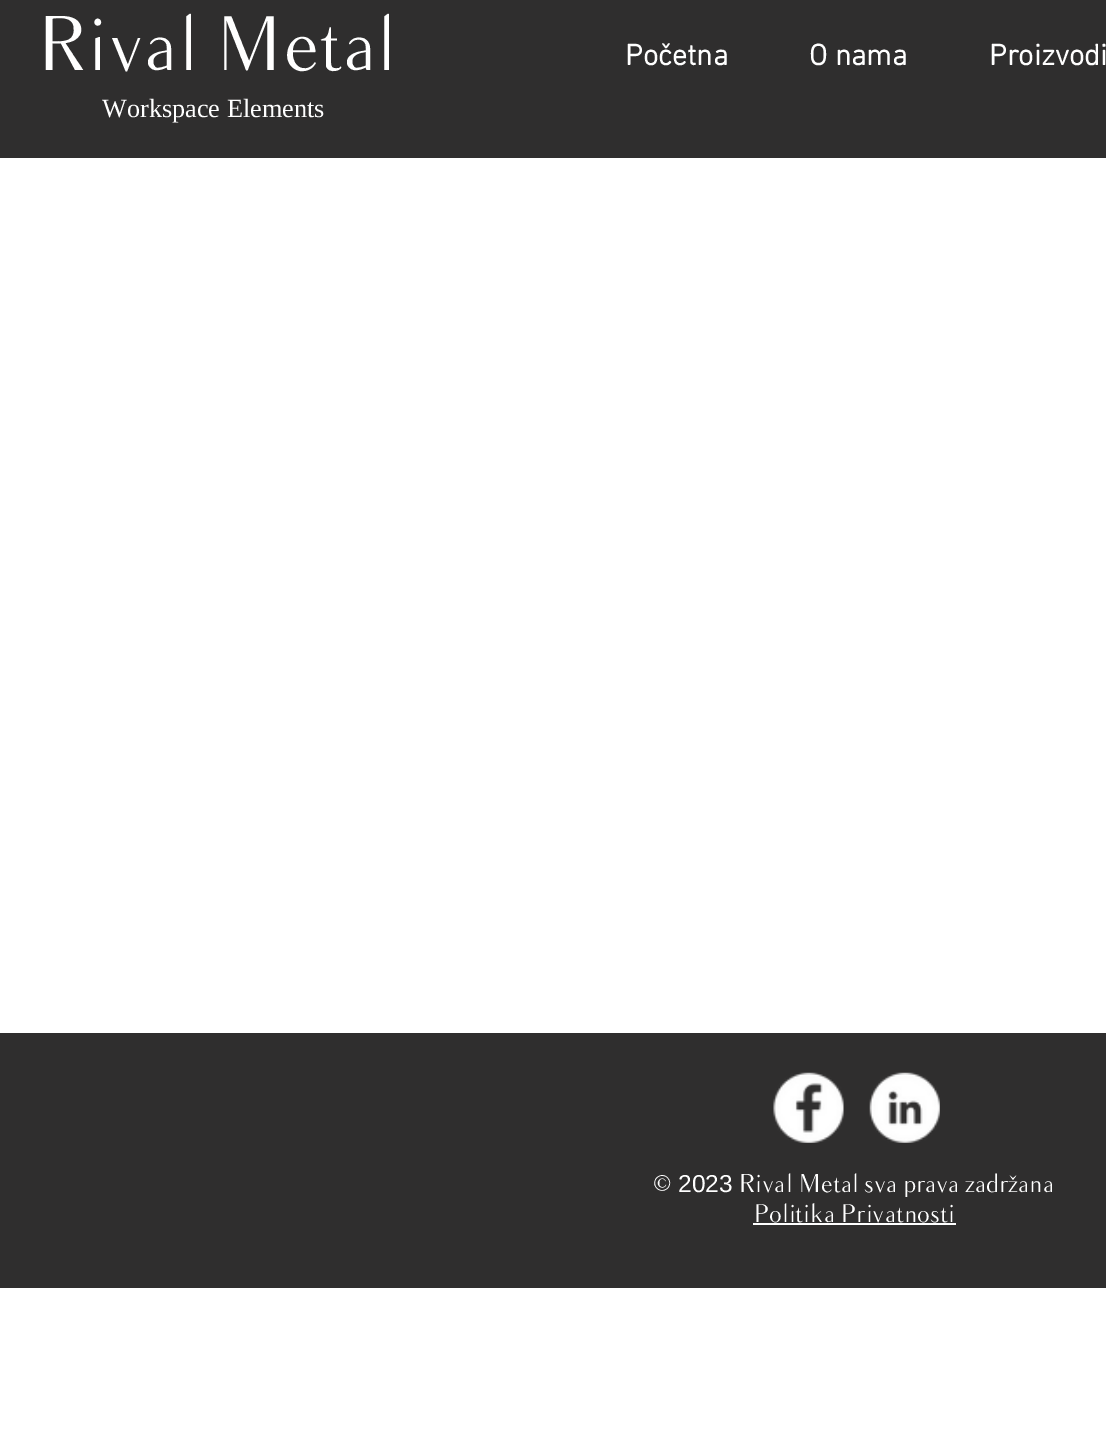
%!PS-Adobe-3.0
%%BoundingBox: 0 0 1106 1454
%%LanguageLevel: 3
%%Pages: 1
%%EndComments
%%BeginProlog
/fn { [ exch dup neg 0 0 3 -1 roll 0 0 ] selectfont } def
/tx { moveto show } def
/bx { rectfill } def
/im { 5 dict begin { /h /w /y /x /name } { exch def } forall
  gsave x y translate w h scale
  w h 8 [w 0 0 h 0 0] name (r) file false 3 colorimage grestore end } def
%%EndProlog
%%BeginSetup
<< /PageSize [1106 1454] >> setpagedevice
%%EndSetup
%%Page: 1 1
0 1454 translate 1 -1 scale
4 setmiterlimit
1 setgray
0 0 1106 1454 bx
0.184 0.18 0.18 setrgbcolor
0 0 1106 158 bx
/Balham-Regular 73.5 fn
1 setgray
(Rival Metal) 35 70 tx
/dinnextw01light-Bold 30 fn
(Početna) 625 65 tx
(O nama) 809 65 tx
(Proizvodi) 989 65 tx
/LiberationSerif-Regular 26.25 fn
(Workspace Elements) 102 117 tx
0.184 0.18 0.18 setrgbcolor
0 1033 1106 255 bx
(image0.raw) 773 1072 71 71 im
(image1.raw) 869 1072 71 71 im
/Balham-Regular 24.5 fn
1 setgray
(©) 653 1192 tx
/LiberationSans-Regular 24.5 fn
(2023) 678 1192 tx
/Balham-Regular 24.5 fn
(Rival Metal sva prava zadržana) 738 1192 tx
(Politika Privatnosti) 753 1222 tx
753 1223 203 2 bx
showpage
%%EOF
